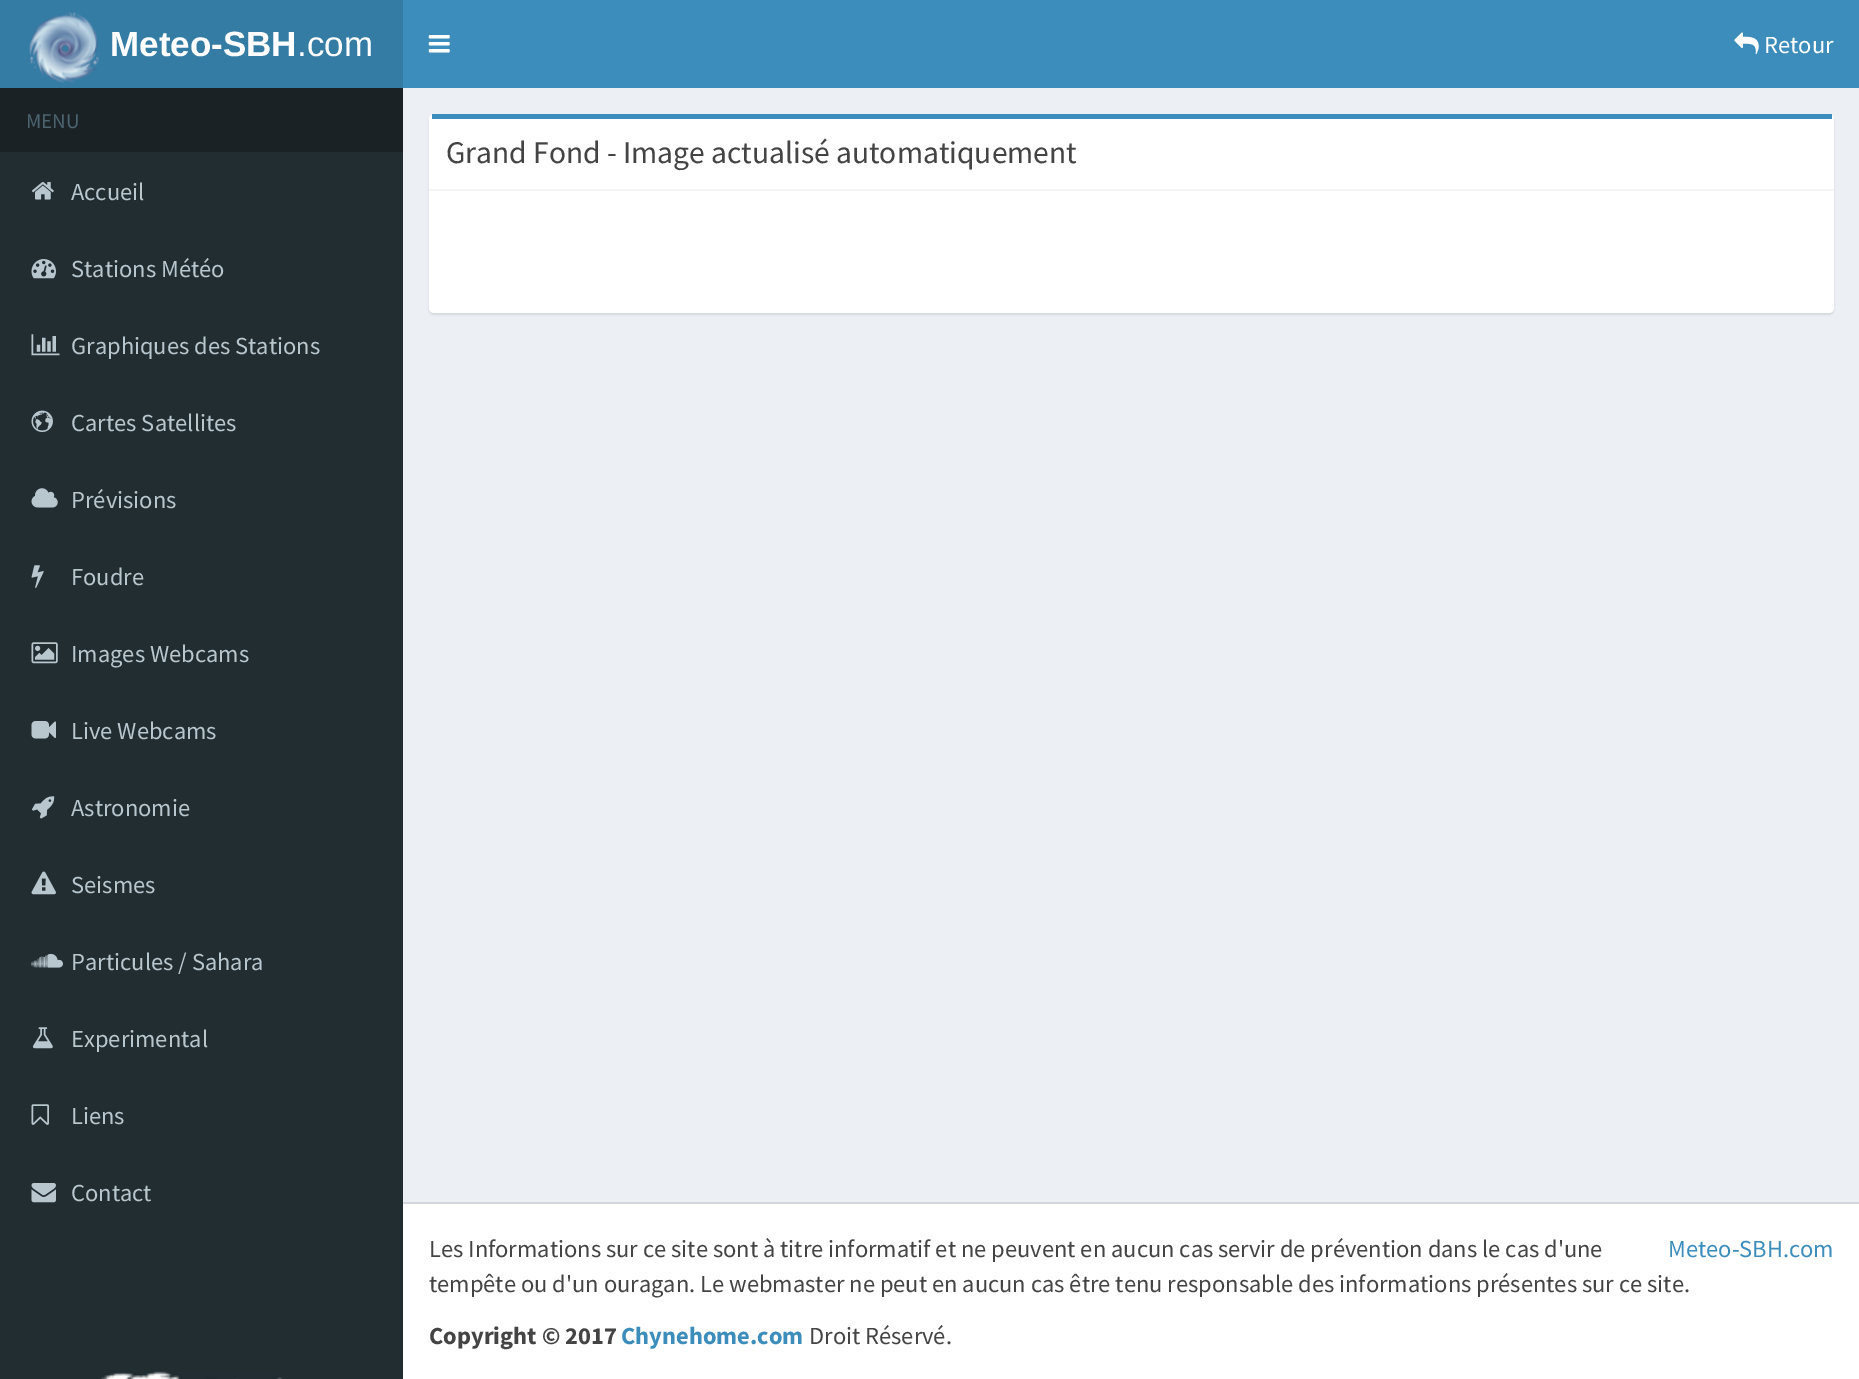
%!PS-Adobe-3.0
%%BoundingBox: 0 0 1859 1379
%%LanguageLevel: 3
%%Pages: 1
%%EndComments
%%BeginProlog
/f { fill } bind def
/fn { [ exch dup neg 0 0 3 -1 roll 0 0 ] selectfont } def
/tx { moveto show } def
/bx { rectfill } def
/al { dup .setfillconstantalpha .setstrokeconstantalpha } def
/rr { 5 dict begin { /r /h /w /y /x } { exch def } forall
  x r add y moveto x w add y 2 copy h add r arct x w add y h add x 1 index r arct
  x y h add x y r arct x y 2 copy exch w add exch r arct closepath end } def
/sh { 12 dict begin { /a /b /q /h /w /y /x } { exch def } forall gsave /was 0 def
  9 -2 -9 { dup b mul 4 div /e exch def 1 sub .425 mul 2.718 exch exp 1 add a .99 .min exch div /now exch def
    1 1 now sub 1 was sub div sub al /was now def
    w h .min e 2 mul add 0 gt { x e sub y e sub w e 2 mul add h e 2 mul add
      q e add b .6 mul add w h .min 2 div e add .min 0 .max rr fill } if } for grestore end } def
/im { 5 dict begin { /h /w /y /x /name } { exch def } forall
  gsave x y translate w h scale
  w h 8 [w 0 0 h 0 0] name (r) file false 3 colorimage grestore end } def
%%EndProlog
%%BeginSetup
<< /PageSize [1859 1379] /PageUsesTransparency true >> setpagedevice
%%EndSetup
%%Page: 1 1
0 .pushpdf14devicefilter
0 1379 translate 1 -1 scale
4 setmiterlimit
0.133 0.176 0.196 setrgbcolor
0 0 1859 1379 bx
0.208 0.486 0.647 setrgbcolor
0 0 403 88 bx
(image0.raw) 29 12 71 71 im
/LiberationSans-Bold 35 fn
1 setgray
(Meteo-SBH) 110 56 tx
/LiberationSans-Regular 35 fn
(.com) 297 56 tx
0.235 0.553 0.737 setrgbcolor
403 0 1456 88 bx
(image1.raw) 428 35 22 18 im
(image2.raw) 1734 32 25 23 im
/SourceSansPro-Regular 24.5 fn
1 setgray
(Retour) 1764 53 tx
0.102 0.133 0.149 setrgbcolor
0 88 403 64 bx
/SourceSansPro-Regular 21 fn
0.294 0.392 0.435 setrgbcolor
(MENU) 26 128 tx
(image3.raw) 31 182 23 18 im
/SourceSansPro-Regular 24.5 fn
0.722 0.78 0.808 setrgbcolor
(Accueil) 71 200 tx
(image4.raw) 31 259 25 20 im
(Stations Météo) 71 277 tx
(image5.raw) 31 334 29 22 im
(Graphiques des Stations) 71 354 tx
(image6.raw) 31 410 22 22 im
(Cartes Satellites) 71 431 tx
(image7.raw) 31 488 27 20 im
(Prévisions) 71 508 tx
(image8.raw) 31 565 13 23 im
(Foudre) 71 585 tx
(image9.raw) 31 642 27 22 im
(Images Webcams) 71 662 tx
(image10.raw) 31 721 25 18 im
(Live Webcams) 71 739 tx
(image11.raw) 32 796 23 23 im
(Astronomie) 71 816 tx
(image12.raw) 31 871 25 24 im
(Seismes) 71 893 tx
(image13.raw) 31 953 32 15 im
(Particules / Sahara) 71 970 tx
(image14.raw) 32 1027 21 22 im
(Experimental) 71 1047 tx
(image15.raw) 31 1104 18 21 im
(Liens) 71 1124 tx
(image16.raw) 31 1183 25 20 im
(Contact) 71 1201 tx
(image17.raw) 101 1371 181 8 im
0.925 0.941 0.961 setrgbcolor
403 88 1456 1114 bx
0 setgray
429 116 1405 199 5 1 0.1 sh
1 setgray
429 114 1405 199 5 rr f
0.235 0.553 0.737 setrgbcolor
432 114 1400 5 bx
0.957 setgray
429 189 1405 2 bx
/SourceSansPro-Regular 31.5 fn
0.267 setgray
(Grand Fond - Image actualisé automatiquement) 446 163 tx
1 setgray
403 1204 1456 175 bx
0.824 0.839 0.871 setrgbcolor
403 1202 1456 2 bx
/SourceSansPro-Regular 24.5 fn
0.267 setgray
(Les Informations sur ce site sont à titre informatif et ne peuvent en aucun cas servir de prévention dans le cas d'une) 429 1257 tx
(tempête ou d'un ouragan. Le webmaster ne peut en aucun cas être tenu responsable des informations présentes sur ce site.) 429 1292 tx
0.235 0.553 0.737 setrgbcolor
(Meteo-SBH.com) 1668 1257 tx
/SourceSansPro-Bold 24.5 fn
0.267 setgray
(Copyright © 2017) 429 1344 tx
0.235 0.553 0.737 setrgbcolor
(Chynehome.com) 621 1344 tx
/SourceSansPro-Regular 24.5 fn
0.267 setgray
(Droit Réservé.) 809 1344 tx
.poppdf14devicefilter showpage
%%EOF
